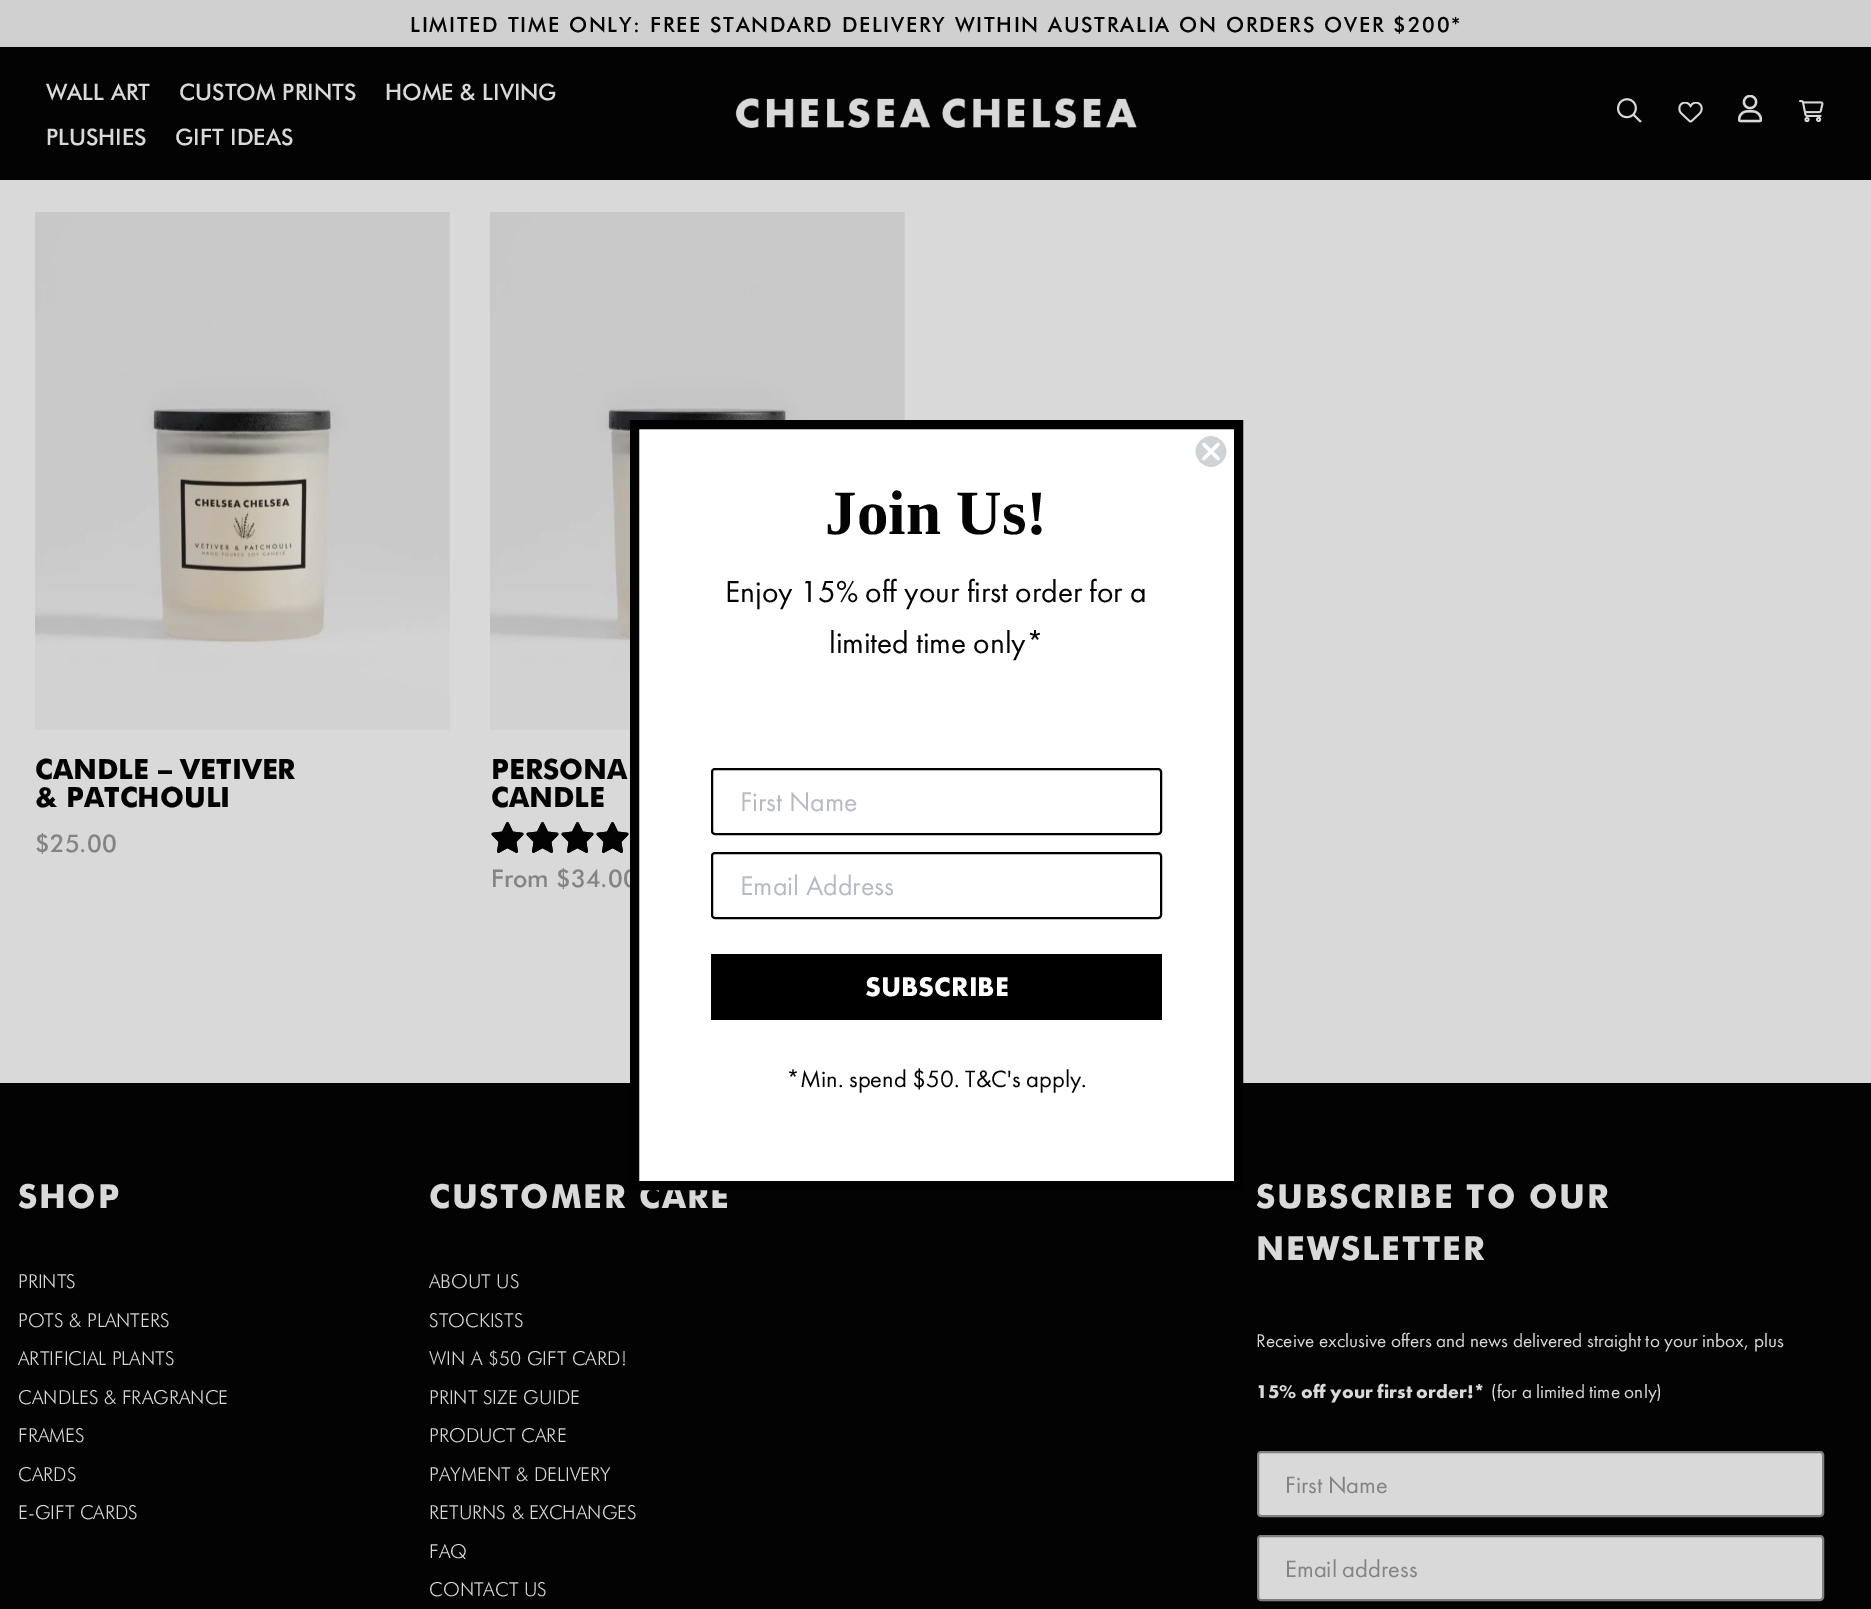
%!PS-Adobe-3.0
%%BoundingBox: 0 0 1871 1609
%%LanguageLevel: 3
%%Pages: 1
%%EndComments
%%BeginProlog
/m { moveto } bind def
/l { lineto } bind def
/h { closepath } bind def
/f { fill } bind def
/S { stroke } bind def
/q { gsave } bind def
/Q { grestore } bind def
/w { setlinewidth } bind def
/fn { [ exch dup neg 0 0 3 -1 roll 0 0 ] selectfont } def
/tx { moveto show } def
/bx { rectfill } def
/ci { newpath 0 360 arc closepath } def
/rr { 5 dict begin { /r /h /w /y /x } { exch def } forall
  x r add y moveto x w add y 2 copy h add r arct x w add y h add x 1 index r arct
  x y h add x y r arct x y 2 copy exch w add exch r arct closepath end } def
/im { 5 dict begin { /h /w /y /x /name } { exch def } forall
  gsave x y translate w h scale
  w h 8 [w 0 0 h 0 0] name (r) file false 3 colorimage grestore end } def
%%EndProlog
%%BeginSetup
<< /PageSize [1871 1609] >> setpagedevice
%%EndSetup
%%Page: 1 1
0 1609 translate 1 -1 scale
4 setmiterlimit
0.851 setgray
0 0 1871 1609 bx
0.816 setgray
0 0 1871 47 bx
/Futura-Medium 21 fn
0.012 setgray
410 32 m 1.75 0 (LIMITED TIME ONLY: FREE STANDARD DELIVERY WITHIN AUSTRALIA ON ORDERS OVER $200*) ashow
0 47 1871 133 bx
/Futura-Medium 22.75 fn
0.851 setgray
(WALL ART) 46 100 tx
(CUSTOM PRINTS) 179 100 tx
(HOME & LIVING) 385 100 tx
(PLUSHIES) 46 145 tx
(GIFT IDEAS) 175 145 tx
(image0.raw) 735 98 402 30 im
(image1.raw) 1617 98 25 25 im
(image2.raw) 1678 102 25 21 im
(image3.raw) 1738 95 24 28 im
(image4.raw) 1799 100 25 23 im
(image5.raw) 35 212 415 518 im
/Futura-Bold 28 fn
0.012 setgray
(CANDLE – VETIVER) 35 779 tx
(& PATCHOULI) 35 807 tx
/Futura-Medium 24.5 fn
0.518 setgray
($25.00) 35 852 tx
(image6.raw) 490 212 415 518 im
/Futura-Bold 28 fn
0.012 setgray
(PERSONA) 491 779 tx
(CANDLE) 491 807 tx
2.9 w
1 setlinecap
1 setlinejoin
507.5 846.5 m 498.5 851.5 l 500 841.5 l 493 834 l 503 833 l 507.5 823.5 l 512 833 l 522 834 l 515 841.5 l 516.5 851.5 l h S
542.5 846.5 m 533.5 851.5 l 535 841.5 l 528 834 l 538 833 l 542.5 823.5 l 547 833 l 557 834 l 550 841.5 l 551.5 851.5 l h S
577.5 846.5 m 568.5 851.5 l 570 841.5 l 563 834 l 573 833 l 577.5 823.5 l 582 833 l 592 834 l 585 841.5 l 586.5 851.5 l h S
612.5 846.5 m 603.5 851.5 l 605 841.5 l 598 834 l 608 833 l 612.5 823.5 l 617 833 l 627 834 l 620 841.5 l 621.5 851.5 l h S
(image7.raw) 491 822 33 31 im
(image7.raw) 526 822 33 31 im
(image7.raw) 561 822 33 31 im
(image7.raw) 596 822 33 31 im
/Futura-Medium 24.5 fn
0.518 setgray
(From $34.00) 491 887 tx
0.012 setgray
0 1083 1871 526 bx
/Futura-Bold 33.25 fn
0.851 setgray
18 1208 m 1.75 0 (SHOP) ashow
/Futura-Light 19.25 fn
(PRINTS) 18 1288 tx
(POTS & PLANTERS) 18 1327 tx
(ARTIFICIAL PLANTS) 18 1365 tx
(CANDLES & FRAGRANCE) 18 1404 tx
(FRAMES) 18 1442 tx
(CARDS) 18 1481 tx
(E-GIFT CARDS) 18 1519 tx
/Futura-Bold 33.25 fn
429 1208 m 1.75 0 (CUSTOMER CARE) ashow
/Futura-Light 19.25 fn
(ABOUT US) 429 1288 tx
(STOCKISTS) 429 1327 tx
(WIN A $50 GIFT CARD!) 429 1365 tx
(PRINT SIZE GUIDE) 429 1404 tx
(PRODUCT CARE) 429 1442 tx
(PAYMENT & DELIVERY) 429 1481 tx
(RETURNS & EXCHANGES) 429 1519 tx
(FAQ) 429 1558 tx
(CONTACT US) 429 1596 tx
/Futura-Bold 33.25 fn
1256 1208 m 1.75 0 (SUBSCRIBE TO OUR) ashow
1256 1260 m 1.75 0 (NEWSLETTER) ashow
/FuturaPT-Regular 19.25 fn
(Receive exclusive offers and news delivered straight to your inbox, plus) 1256 1347 tx
/FuturaPT-Bold 19.25 fn
(15% off your first order!*) 1256 1398 tx
/FuturaPT-Regular 19.25 fn
(\(for a limited time only\)) 1491 1398 tx
1258 1452 565 64 3 rr q f Q
0.502 0.502 0.506 setrgbcolor
2 w
0 setlinecap
0 setlinejoin
S
/FuturaPT-Regular 24.5 fn
0.518 setgray
(First Name) 1285 1493 tx
0.851 setgray
1258 1536 565 64 3 rr q f Q
0.502 0.502 0.506 setrgbcolor
S
0.518 setgray
(Email address) 1285 1577 tx
1 setgray
634.5 424.5 m 1238.5 424.5 l 1238.5 1185.5 l 634.5 1185.5 l h q f Q
0 setgray
9 w
S
0.808 0.827 0.847 setrgbcolor
1211 451.5 16.5 ci q f Q
1 setgray
1.8 w
S
3.5 w
1 setlinecap
1 setlinejoin
1204 444.5 m 1218 458.5 l 1204 458.5 m 1218 444.5 l h S
/LiberationSerif-Bold 63 fn
0.012 setgray
(Join Us!) 825 534 tx
/FuturaPT-Regular 31.5 fn
(Enjoy 15% off your first order for a) 725 602 tx
(limited time only*) 829 653 tx
0 setgray
2 w
0 setlinecap
0 setlinejoin
712 769 449 65 3 rr S
/FuturaPT-Regular 28 fn
0.706 0.733 0.765 setrgbcolor
(First Name) 740 811 tx
0 setgray
712 853 449 65 3 rr S
0.706 0.733 0.765 setrgbcolor
(Email Address) 740 895 tx
0 setgray
711 954 451 66 bx
/FuturaPT-Bold 28 fn
1 setgray
(SUBSCRIBE) 865 996 tx
/FuturaPT-Regular 24.5 fn
0.012 setgray
(*Min. spend $50. T&C's apply.) 786 1087 tx
showpage
%%EOF
